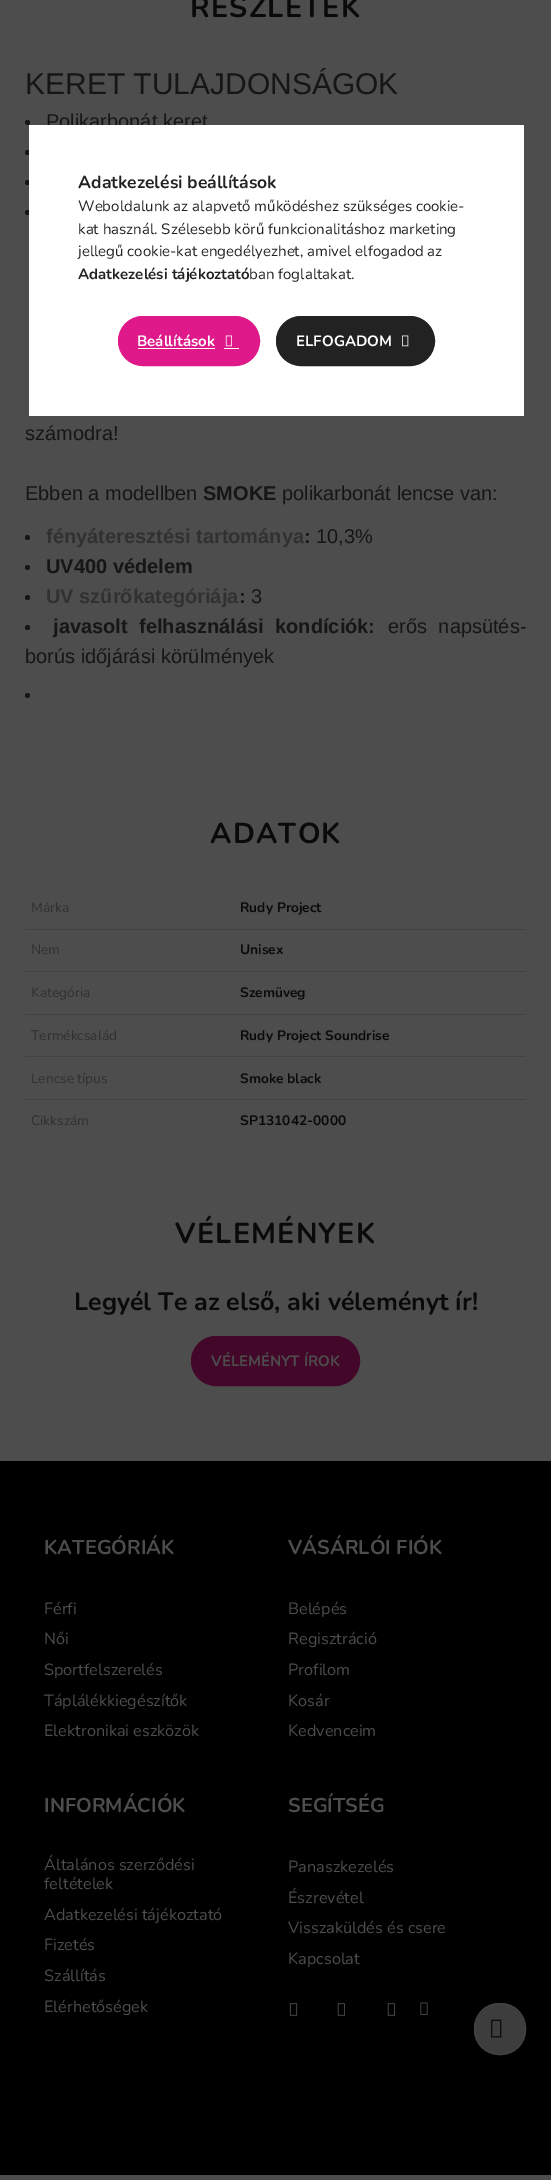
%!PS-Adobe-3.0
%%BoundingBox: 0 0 551 2180
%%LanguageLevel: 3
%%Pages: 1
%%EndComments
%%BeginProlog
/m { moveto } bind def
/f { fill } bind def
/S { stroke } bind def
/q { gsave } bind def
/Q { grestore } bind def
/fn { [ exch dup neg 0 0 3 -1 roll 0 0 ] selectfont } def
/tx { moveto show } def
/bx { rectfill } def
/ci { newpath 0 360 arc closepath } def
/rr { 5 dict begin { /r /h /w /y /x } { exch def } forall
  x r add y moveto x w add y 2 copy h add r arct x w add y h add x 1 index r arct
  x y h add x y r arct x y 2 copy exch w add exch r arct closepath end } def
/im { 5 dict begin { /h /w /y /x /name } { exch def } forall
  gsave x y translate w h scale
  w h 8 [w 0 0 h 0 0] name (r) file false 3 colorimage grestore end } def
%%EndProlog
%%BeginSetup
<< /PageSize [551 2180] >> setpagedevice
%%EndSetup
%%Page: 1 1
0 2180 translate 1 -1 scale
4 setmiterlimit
0.302 setgray
0 0 551 2180 bx
/Nunito-Bold 28.75 fn
0.039 setgray
190 17 m 1.25 0 (RÉSZLETEK) ashow
/LiberationSans-Regular 30 fn
0.086 setgray
(KERET TULAJDONSÁGOK) 25 94 tx
27.5 122.5 2.5 ci f
/LiberationSans-Regular 20 fn
(Polikarbonát keret) 46 128 tx
27.5 152.5 2.5 ci f
27.5 182.5 2.5 ci f
27.5 212.5 2.5 ci f
(számodra!) 25 440 tx
(Ebben a modellben) 25 500 tx
/LiberationSans-Bold 20 fn
(SMOKE) 203 500 tx
/LiberationSans-Regular 20 fn
(polikarbonát lencse van:) 282 500 tx
27.5 537.5 2.5 ci f
/LiberationSans-Bold 20 fn
0.192 setgray
(fényáteresztési tartománya) 46 543 tx
0.086 setgray
(:) 304 543 tx
/LiberationSans-Regular 20 fn
(10,3%) 316 543 tx
27.5 567.5 2.5 ci f
/LiberationSans-Bold 20 fn
(UV400 védelem) 46 573 tx
27.5 597.5 2.5 ci f
0.192 setgray
(UV szűrőkategóriája) 46 603 tx
0.086 setgray
(:) 239 603 tx
/LiberationSans-Regular 20 fn
(3) 251 603 tx
27.5 627.5 2.5 ci f
/LiberationSans-Bold 20 fn
53 633 m 6 0 32 (javasolt felhasználási kondíciók:) widthshow
/LiberationSans-Regular 20 fn
388 633 m 6 0 32 (erős napsütés-) widthshow
(borús időjárási körülmények) 25 663 tx
27.5 695.5 2.5 ci f
/Nunito-Bold 28.75 fn
0.039 setgray
210 843 m 1.25 0 (ADATOK) ashow
/Nunito-Regular 13.75 fn
0.192 setgray
(Márka) 31 912 tx
/Nunito-Bold 13.75 fn
0.039 setgray
(Rudy Project) 240 912 tx
0.259 setgray
25 929 501 1 bx
/Nunito-Regular 13.75 fn
0.192 setgray
(Nem) 31 954 tx
/Nunito-Bold 13.75 fn
0.039 setgray
(Unisex) 240 954 tx
0.259 setgray
25 971 501 1 bx
/Nunito-Regular 13.75 fn
0.192 setgray
(Kategória) 31 997 tx
/Nunito-Bold 13.75 fn
0.039 setgray
(Szemüveg) 240 997 tx
0.259 setgray
25 1014 501 1 bx
/Nunito-Regular 13.75 fn
0.192 setgray
(Termékcsalád) 31 1040 tx
/Nunito-Bold 13.75 fn
0.039 setgray
(Rudy Project Soundrise) 240 1040 tx
0.259 setgray
25 1056 501 1 bx
/Nunito-Regular 13.75 fn
0.192 setgray
(Lencse típus) 31 1083 tx
/Nunito-Bold 13.75 fn
0.039 setgray
(Smoke black) 240 1083 tx
0.259 setgray
25 1099 501 1 bx
/Nunito-Regular 13.75 fn
0.192 setgray
(Cikkszám) 31 1125 tx
/Nunito-Bold 13.75 fn
0.039 setgray
(SP131042-0000) 240 1125 tx
/Nunito-Bold 28.75 fn
175 1243 m 1.25 0 (VÉLEMÉNYEK) ashow
/Nunito-Bold 25 fn
(Legyél Te az első, aki véleményt ír!) 74 1310 tx
0.263 0.031 0.161 setrgbcolor
191.5 1336.5 168 49 24.5 rr q f Q
S
/Nunito-Bold 15 fn
0.302 setgray
(VÉLEMÉNYT ÍROK) 211 1366 tx
0 setgray
0 1461 551 714 bx
/Nunito-Bold 20 fn
0.302 setgray
(KATEGÓRIÁK) 44 1554 tx
/Nunito-Regular 16.25 fn
(Férfi) 44 1614 tx
(Női) 44 1644 tx
(Sportfelszerelés) 44 1675 tx
(Táplálékkiegészítők) 44 1706 tx
(Elektronikai eszközök) 44 1736 tx
/Nunito-Bold 20 fn
(VÁSÁRLÓI FIÓK) 288 1554 tx
/Nunito-Regular 16.25 fn
(Belépés) 288 1614 tx
(Regisztráció) 288 1644 tx
(Profilom) 288 1675 tx
(Kosár) 288 1706 tx
(Kedvenceim) 288 1736 tx
/Nunito-Bold 20 fn
(INFORMÁCIÓK) 44 1812 tx
/Nunito-Regular 16.25 fn
(Általános szerződési) 44 1870 tx
(feltételek) 44 1889 tx
(Adatkezelési tájékoztató) 44 1920 tx
(Fizetés) 44 1950 tx
(Szállítás) 44 1981 tx
(Elérhetőségek) 44 2012 tx
/Nunito-Bold 20 fn
(SEGÍTSÉG) 288 1812 tx
/Nunito-Regular 16.25 fn
(Panaszkezelés) 288 1872 tx
(Észrevétel) 288 1903 tx
(Visszaküldés és csere) 288 1933 tx
(Kapcsolat) 288 1964 tx
(image0.raw) 289 2003 9 13 im
(image1.raw) 337 2003 8 13 im
(image1.raw) 387 2003 8 13 im
(image2.raw) 420 2002 8 13 im
1 setgray
29 125 495 291 bx
/Nunito-Bold 17.5 fn
0.133 setgray
(Adatkezelési beállítások) 78 188 tx
/Nunito-Regular 15 fn
(Weboldalunk az alapvető működéshez szükséges cookie-) 78 211 tx
(kat használ. Szélesebb körű funkcionalitáshoz marketing) 78 234 tx
(jellegű cookie-kat engedélyezhet, amivel elfogadod az) 78 256 tx
/Nunito-Bold 15 fn
(Adatkezelési tájékoztató) 78 279 tx
/Nunito-Regular 15 fn
(ban foglaltakat.) 249 279 tx
0.878 0.098 0.541 setrgbcolor
118.5 316.5 141 49 24.5 rr q f Q
S
/Nunito-Bold 15 fn
1 setgray
(Beállítások) 137 346 tx
138 348 77 1 bx
(image3.raw) 225 335 7 12 im
224 348 15 1 bx
0.133 setgray
276.5 316.5 158 49 24.5 rr q f Q
S
1 setgray
(ELFOGADOM) 296 346 tx
(image4.raw) 402 335 7 12 im
0.239 setgray
474.5 2003.5 51 51 24.5 rr q f Q
0.259 setgray
S
(image5.raw) 491 2019 11 19 im
showpage
%%EOF
